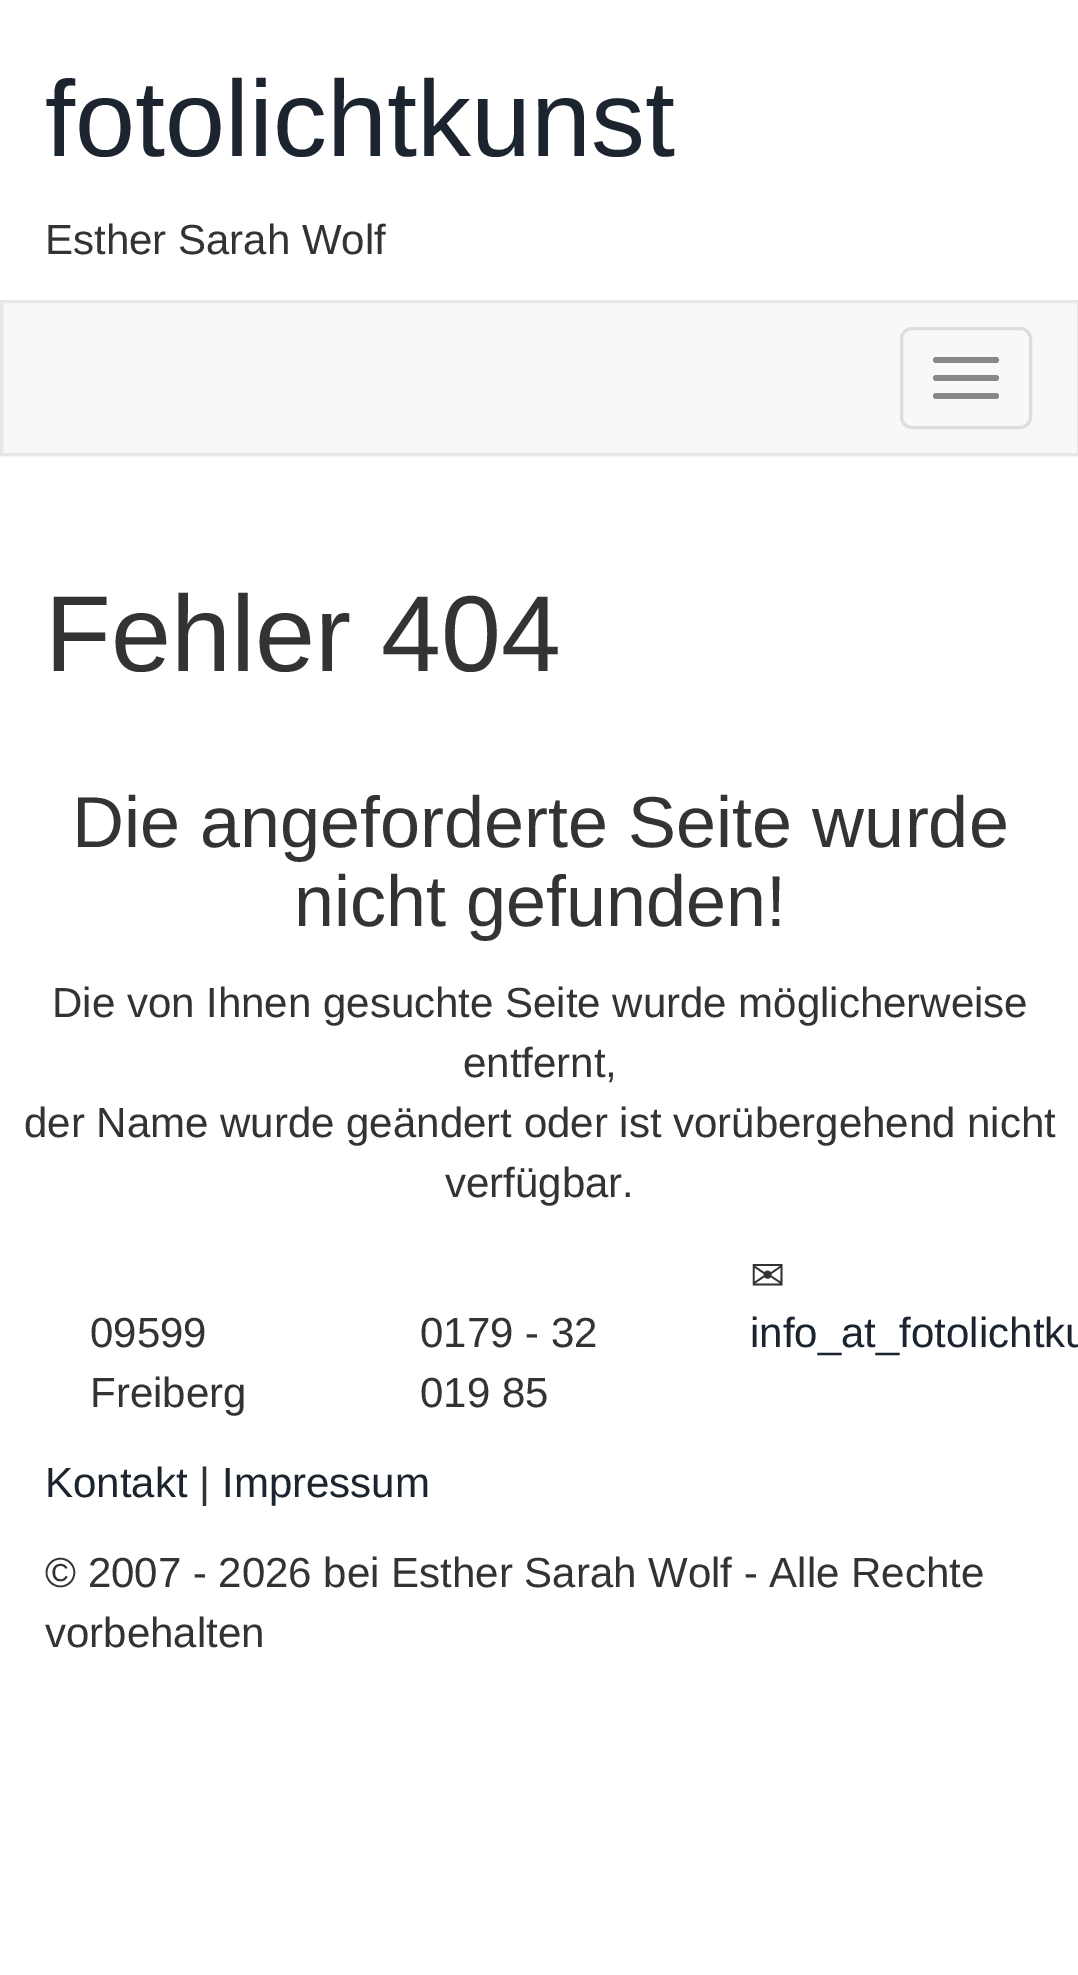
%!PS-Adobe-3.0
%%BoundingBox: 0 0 1078 1975
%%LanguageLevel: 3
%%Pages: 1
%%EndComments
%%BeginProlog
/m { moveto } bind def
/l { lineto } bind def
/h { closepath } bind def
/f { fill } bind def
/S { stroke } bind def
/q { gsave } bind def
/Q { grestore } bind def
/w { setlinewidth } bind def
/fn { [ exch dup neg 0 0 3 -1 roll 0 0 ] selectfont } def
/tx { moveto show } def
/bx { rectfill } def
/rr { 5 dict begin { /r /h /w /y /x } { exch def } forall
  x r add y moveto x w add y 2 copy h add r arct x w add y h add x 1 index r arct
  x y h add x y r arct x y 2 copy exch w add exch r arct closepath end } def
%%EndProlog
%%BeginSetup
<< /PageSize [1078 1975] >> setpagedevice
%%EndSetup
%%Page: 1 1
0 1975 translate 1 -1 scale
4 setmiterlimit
1 setgray
0 0 1078 1975 bx
/LiberationSans-Regular 108 fn
0.106 0.141 0.184 setrgbcolor
(fotolichtkunst) 45 156 tx
/LiberationSans-Regular 42 fn
0.2 setgray
(Esther Sarah Wolf) 45 254 tx
0.973 setgray
1.5 301.5 m 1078.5 301.5 l 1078.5 454.5 l 1.5 454.5 l h q f Q
0.906 setgray
3 w
S
0.867 setgray
901.5 328.5 129 99 10.5 rr S
0.533 setgray
933 357 66 6 3 rr f
933 375 66 6 3 rr f
933 393 66 6 3 rr f
/LiberationSans-Regular 108 fn
0.2 setgray
(Fehler 404) 45 671 tx
/LiberationSans-Regular 72 fn
(Die angeforderte Seite wurde) 72 847 tx
(nicht gefunden!) 294 926 tx
/LiberationSans-Regular 42 fn
(Die von Ihnen gesuchte Seite wurde möglicherweise) 52 1017 tx
(entfernt,) 463 1077 tx
(der Name wurde geändert oder ist vorübergehend nicht) 24 1137 tx
(verfügbar.) 445 1197 tx
(09599) 90 1347 tx
(Freiberg) 90 1407 tx
(0179 - 32) 420 1347 tx
(019 85) 420 1407 tx
/DejaVuSans-Regular 42 fn
(✉) 750 1290 tx
/LiberationSans-Regular 42 fn
0.106 0.141 0.184 setrgbcolor
(info_at_fotolichtku) 750 1347 tx
(Kontakt) 45 1497 tx
0.2 setgray
(|) 199 1497 tx
0.106 0.141 0.184 setrgbcolor
(Impressum) 222 1497 tx
0.2 setgray
(© 2007 - 2026 bei Esther Sarah Wolf - Alle Rechte) 45 1587 tx
(vorbehalten) 45 1647 tx
showpage
%%EOF
